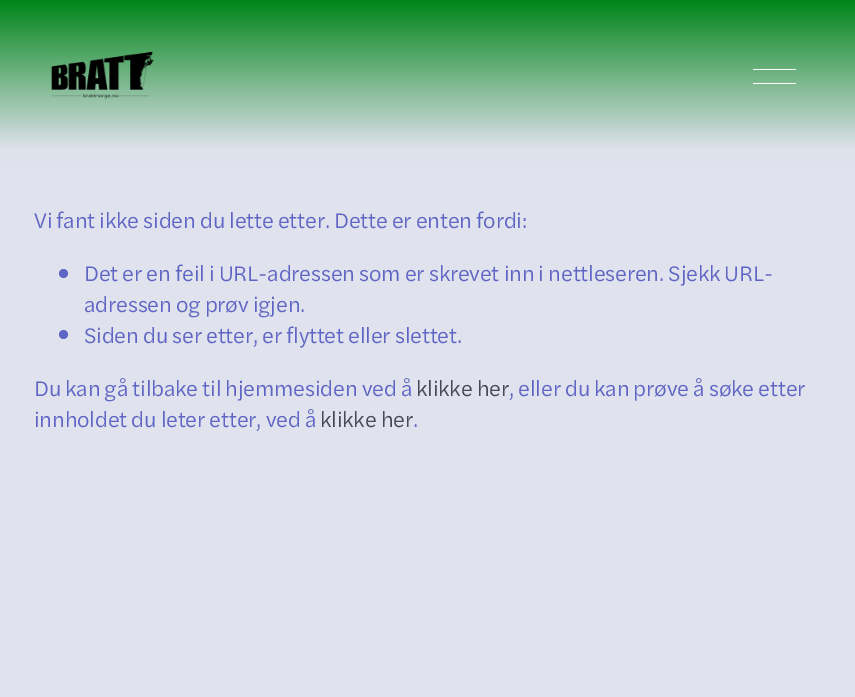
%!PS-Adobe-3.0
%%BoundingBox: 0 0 855 697
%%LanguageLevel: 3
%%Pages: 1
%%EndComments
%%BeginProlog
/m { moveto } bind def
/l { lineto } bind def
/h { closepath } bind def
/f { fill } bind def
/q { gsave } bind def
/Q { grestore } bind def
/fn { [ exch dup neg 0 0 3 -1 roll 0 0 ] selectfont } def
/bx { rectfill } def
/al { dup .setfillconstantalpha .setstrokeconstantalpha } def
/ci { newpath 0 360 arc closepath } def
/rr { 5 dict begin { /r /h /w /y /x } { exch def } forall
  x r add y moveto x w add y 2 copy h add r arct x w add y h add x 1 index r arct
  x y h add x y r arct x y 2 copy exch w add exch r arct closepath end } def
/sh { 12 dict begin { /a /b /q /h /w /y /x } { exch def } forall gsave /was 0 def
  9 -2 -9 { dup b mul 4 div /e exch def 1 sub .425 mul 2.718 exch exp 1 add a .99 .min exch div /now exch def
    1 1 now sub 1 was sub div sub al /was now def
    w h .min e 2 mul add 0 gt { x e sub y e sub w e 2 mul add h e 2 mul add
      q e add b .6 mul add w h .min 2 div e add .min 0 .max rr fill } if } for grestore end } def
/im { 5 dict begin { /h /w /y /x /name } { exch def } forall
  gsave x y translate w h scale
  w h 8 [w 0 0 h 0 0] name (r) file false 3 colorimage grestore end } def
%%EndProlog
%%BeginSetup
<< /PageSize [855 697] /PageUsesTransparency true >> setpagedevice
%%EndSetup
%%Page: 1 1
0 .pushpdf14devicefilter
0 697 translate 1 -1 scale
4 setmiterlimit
0.878 0.886 0.929 setrgbcolor
0 0 855 697 bx
0.839 0.886 0.906 setrgbcolor
4 4 847 142 0 19 1 sh
q 0 0 m 855 0 l 855 150 l 0 150 l h clip newpath
<< /ShadingType 2 /ColorSpace /DeviceRGB /Coords [428 0 428 150] /Extend [true true] /Function << /FunctionType 2 /Domain [0 1] /C0 [0 0.522 0.098] /C1 [0.878 0.886 0.929] /N 1 >> >> shfill Q
(image0.raw) 51 51 103 48 im
1 setgray
753 69 43 1 bx
753 83 43 1 bx
/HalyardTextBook-Regular 22.05 fn
0.369 0.396 0.769 setrgbcolor
34 228 m -0.22 0 (Vi fant ikke siden du lette etter. Dette er enten fordi:) ashow
63.5 273.5 4.5 ci f
84 281 m -0.22 0 (Det er en feil i URL-adressen som er skrevet inn i nettleseren. Sjekk URL-) ashow
84 312 m -0.22 0 (adressen og prøv igjen.) ashow
63.5 334.5 4.5 ci f
84 343 m -0.22 0 (Siden du ser etter, er flyttet eller slettet.) ashow
34 396 m -0.22 0 (Du kan gå tilbake til hjemmesiden ved å) ashow
0.282 0.286 0.333 setrgbcolor
416 396 m -0.22 0 (klikke her) ashow
0.369 0.396 0.769 setrgbcolor
509 396 m -0.22 0 (, eller du kan prøve å søke etter) ashow
34 427 m -0.22 0 (innholdet du leter etter, ved å) ashow
0.282 0.286 0.333 setrgbcolor
320 427 m -0.22 0 (klikke her) ashow
0.369 0.396 0.769 setrgbcolor
413 427 m -0.22 0 (.) ashow
.poppdf14devicefilter showpage
%%EOF
